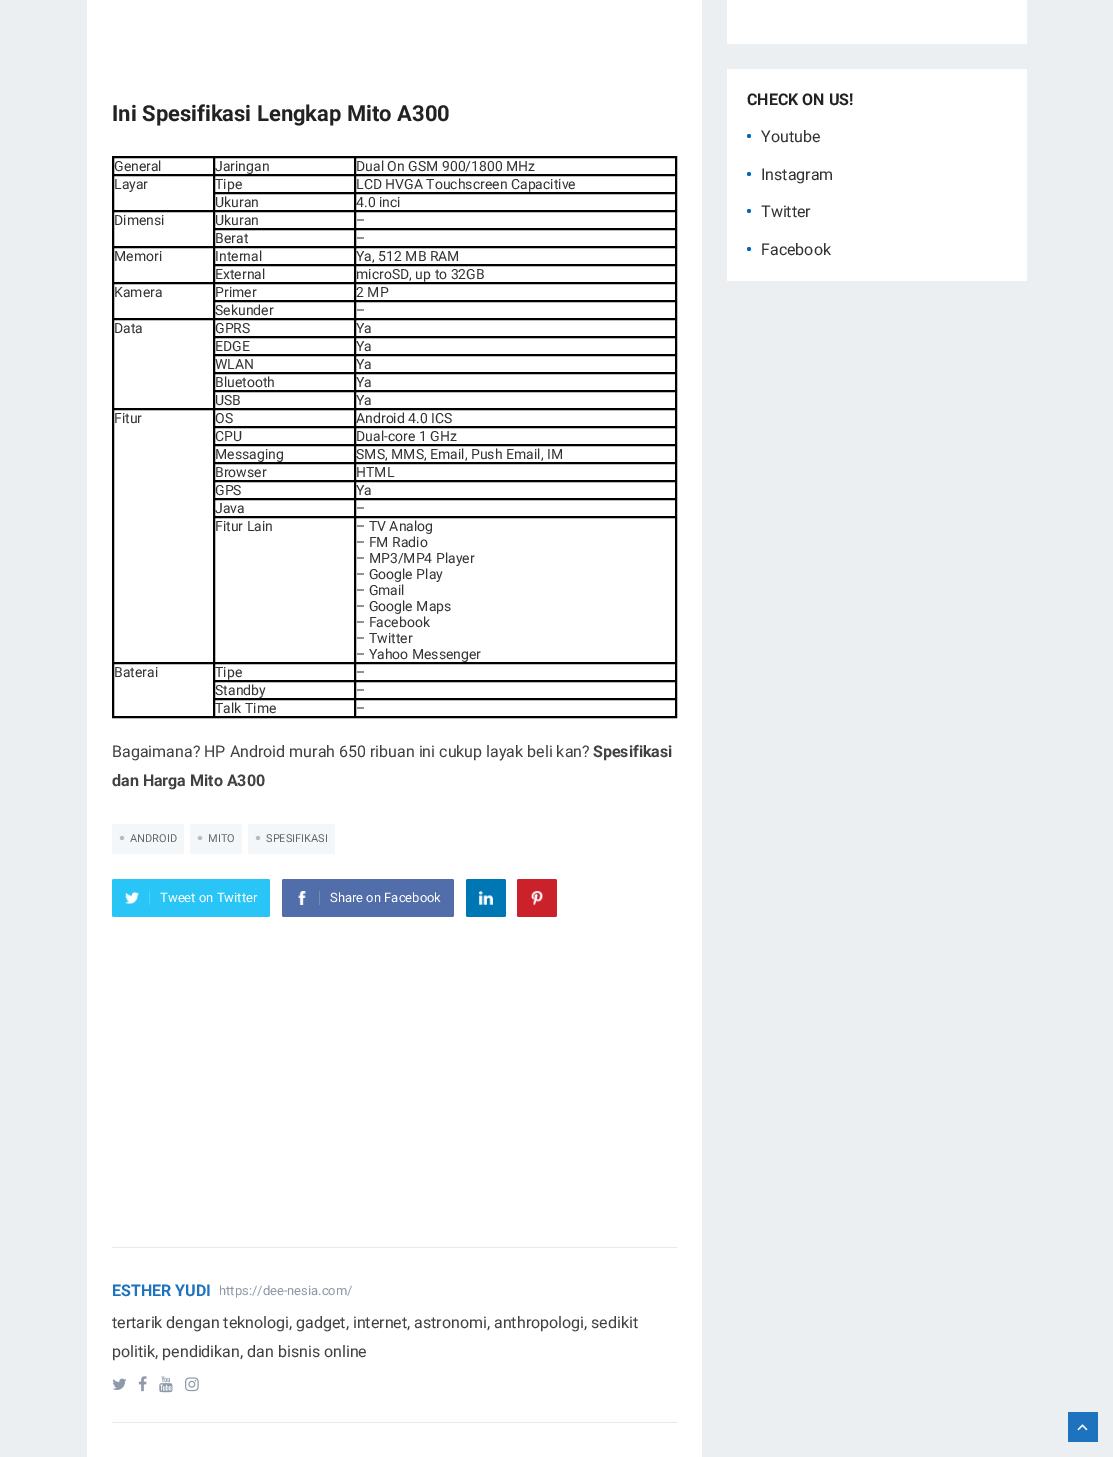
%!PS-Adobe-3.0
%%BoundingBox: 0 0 1113 1457
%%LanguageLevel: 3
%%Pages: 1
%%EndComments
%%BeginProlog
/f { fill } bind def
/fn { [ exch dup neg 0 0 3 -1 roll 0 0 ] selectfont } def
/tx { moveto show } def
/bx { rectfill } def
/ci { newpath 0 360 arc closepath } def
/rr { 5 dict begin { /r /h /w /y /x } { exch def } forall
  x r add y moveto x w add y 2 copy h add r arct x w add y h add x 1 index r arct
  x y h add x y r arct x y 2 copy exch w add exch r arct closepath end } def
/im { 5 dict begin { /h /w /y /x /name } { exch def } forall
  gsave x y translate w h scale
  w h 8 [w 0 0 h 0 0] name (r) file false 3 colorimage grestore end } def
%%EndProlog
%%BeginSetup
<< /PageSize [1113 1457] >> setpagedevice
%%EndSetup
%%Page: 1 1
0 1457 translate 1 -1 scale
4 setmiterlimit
0.925 0.937 0.945 setrgbcolor
0 0 1113 1457 bx
1 setgray
87 0 615 1457 bx
/Roboto-Bold 22 fn
0.133 setgray
(Ini Spesifikasi Lengkap Mito A300) 112 121 tx
0 setgray
112.5 156.5 564 561 rectstroke
113.5 157.5 100 17 rectstroke
/Roboto-Regular 14 fn
0.2 setgray
(General) 114 171 tx
0 setgray
214.5 157.5 140 17 rectstroke
0.2 setgray
(Jaringan) 215 171 tx
0 setgray
355.5 157.5 320 17 rectstroke
0.2 setgray
(Dual On GSM 900/1800 MHz) 356 171 tx
0 setgray
113.5 175.5 100 35 rectstroke
0.2 setgray
(Layar) 114 189 tx
0 setgray
214.5 175.5 140 17 rectstroke
0.2 setgray
(Tipe) 215 189 tx
0 setgray
355.5 175.5 320 17 rectstroke
0.2 setgray
(LCD HVGA Touchscreen Capacitive) 356 189 tx
0 setgray
214.5 193.5 140 17 rectstroke
0.2 setgray
(Ukuran) 215 207 tx
0 setgray
355.5 193.5 320 17 rectstroke
0.2 setgray
(4.0 inci) 356 207 tx
0 setgray
113.5 211.5 100 35 rectstroke
0.2 setgray
(Dimensi) 114 225 tx
0 setgray
214.5 211.5 140 17 rectstroke
0.2 setgray
(Ukuran) 215 225 tx
0 setgray
355.5 211.5 320 17 rectstroke
0.2 setgray
(–) 356 225 tx
0 setgray
214.5 229.5 140 17 rectstroke
0.2 setgray
(Berat) 215 243 tx
0 setgray
355.5 229.5 320 17 rectstroke
0.2 setgray
(–) 356 243 tx
0 setgray
113.5 247.5 100 35 rectstroke
0.2 setgray
(Memori) 114 261 tx
0 setgray
214.5 247.5 140 17 rectstroke
0.2 setgray
(Internal) 215 261 tx
0 setgray
355.5 247.5 320 17 rectstroke
0.2 setgray
(Ya, 512 MB RAM) 356 261 tx
0 setgray
214.5 265.5 140 17 rectstroke
0.2 setgray
(External) 215 279 tx
0 setgray
355.5 265.5 320 17 rectstroke
0.2 setgray
(microSD, up to 32GB) 356 279 tx
0 setgray
113.5 283.5 100 35 rectstroke
0.2 setgray
(Kamera) 114 297 tx
0 setgray
214.5 283.5 140 17 rectstroke
0.2 setgray
(Primer) 215 297 tx
0 setgray
355.5 283.5 320 17 rectstroke
0.2 setgray
(2 MP) 356 297 tx
0 setgray
214.5 301.5 140 17 rectstroke
0.2 setgray
(Sekunder) 215 315 tx
0 setgray
355.5 301.5 320 17 rectstroke
0.2 setgray
(–) 356 315 tx
0 setgray
113.5 319.5 100 89 rectstroke
0.2 setgray
(Data) 114 333 tx
0 setgray
214.5 319.5 140 17 rectstroke
0.2 setgray
(GPRS) 215 333 tx
0 setgray
355.5 319.5 320 17 rectstroke
0.2 setgray
(Ya) 356 333 tx
0 setgray
214.5 337.5 140 17 rectstroke
0.2 setgray
(EDGE) 215 351 tx
0 setgray
355.5 337.5 320 17 rectstroke
0.2 setgray
(Ya) 356 351 tx
0 setgray
214.5 355.5 140 17 rectstroke
0.2 setgray
(WLAN) 215 369 tx
0 setgray
355.5 355.5 320 17 rectstroke
0.2 setgray
(Ya) 356 369 tx
0 setgray
214.5 373.5 140 17 rectstroke
0.2 setgray
(Bluetooth) 215 387 tx
0 setgray
355.5 373.5 320 17 rectstroke
0.2 setgray
(Ya) 356 387 tx
0 setgray
214.5 391.5 140 17 rectstroke
0.2 setgray
(USB) 215 405 tx
0 setgray
355.5 391.5 320 17 rectstroke
0.2 setgray
(Ya) 356 405 tx
0 setgray
113.5 409.5 100 253 rectstroke
0.2 setgray
(Fitur) 114 423 tx
0 setgray
214.5 409.5 140 17 rectstroke
0.2 setgray
(OS) 215 423 tx
0 setgray
355.5 409.5 320 17 rectstroke
0.2 setgray
(Android 4.0 ICS) 356 423 tx
0 setgray
214.5 427.5 140 17 rectstroke
0.2 setgray
(CPU) 215 441 tx
0 setgray
355.5 427.5 320 17 rectstroke
0.2 setgray
(Dual-core 1 GHz) 356 441 tx
0 setgray
214.5 445.5 140 17 rectstroke
0.2 setgray
(Messaging) 215 459 tx
0 setgray
355.5 445.5 320 17 rectstroke
0.2 setgray
(SMS, MMS, Email, Push Email, IM) 356 459 tx
0 setgray
214.5 463.5 140 17 rectstroke
0.2 setgray
(Browser) 215 477 tx
0 setgray
355.5 463.5 320 17 rectstroke
0.2 setgray
(HTML) 356 477 tx
0 setgray
214.5 481.5 140 17 rectstroke
0.2 setgray
(GPS) 215 495 tx
0 setgray
355.5 481.5 320 17 rectstroke
0.2 setgray
(Ya) 356 495 tx
0 setgray
214.5 499.5 140 17 rectstroke
0.2 setgray
(Java) 215 513 tx
0 setgray
355.5 499.5 320 17 rectstroke
0.2 setgray
(–) 356 513 tx
0 setgray
214.5 517.5 140 145 rectstroke
0.2 setgray
(Fitur Lain) 215 531 tx
0 setgray
355.5 517.5 320 145 rectstroke
0.2 setgray
(– TV Analog) 356 531 tx
(– FM Radio) 356 547 tx
(– MP3/MP4 Player) 356 563 tx
(– Google Play) 356 579 tx
(– Gmail) 356 595 tx
(– Google Maps) 356 611 tx
(– Facebook) 356 627 tx
(– Twitter) 356 643 tx
(– Yahoo Messenger) 356 659 tx
0 setgray
113.5 663.5 100 53 rectstroke
0.2 setgray
(Baterai) 114 677 tx
0 setgray
214.5 663.5 140 17 rectstroke
0.2 setgray
(Tipe) 215 677 tx
0 setgray
355.5 663.5 320 17 rectstroke
0.2 setgray
(–) 356 677 tx
0 setgray
214.5 681.5 140 17 rectstroke
0.2 setgray
(Standby) 215 695 tx
0 setgray
355.5 681.5 320 17 rectstroke
0.2 setgray
(–) 356 695 tx
0 setgray
214.5 699.5 140 17 rectstroke
0.2 setgray
(Talk Time) 215 713 tx
0 setgray
355.5 699.5 320 17 rectstroke
0.2 setgray
(–) 356 713 tx
/Roboto-Regular 16 fn
0.255 setgray
(Bagaimana? HP Android murah 650 ribuan ini cukup layak beli kan?) 112 757 tx
/Roboto-Bold 16 fn
(Spesifikasi) 593 757 tx
(dan Harga Mito A300) 112 786 tx
0.957 0.969 0.98 setrgbcolor
112 824 72 30 2 rr f
(image0.raw) 119 835 6 6 im
/Roboto-Regular 11 fn
0.4 setgray
(ANDROID) 130 842 tx
0.957 0.969 0.98 setrgbcolor
190 824 52 30 2 rr f
(image0.raw) 197 835 6 6 im
0.4 setgray
(MITO) 208 842 tx
0.957 0.969 0.98 setrgbcolor
248 824 87 30 2 rr f
(image0.raw) 255 835 6 6 im
0.4 setgray
(SPESIFIKASI) 266 842 tx
0.161 0.773 0.965 setrgbcolor
112 879 158 38 2 rr f
(image1.raw) 125 891 14 14 im
0.329 0.82 0.973 setrgbcolor
149 891 1 14 bx
/Roboto-Regular 13 fn
1 setgray
(Tweet on Twitter) 160 902 tx
0.318 0.431 0.671 setrgbcolor
282 879 172 38 2 rr f
(image2.raw) 298 891 8 14 im
0.455 0.545 0.737 setrgbcolor
319 891 1 14 bx
1 setgray
(Share on Facebook) 330 902 tx
0 0.467 0.71 setrgbcolor
466 879 40 38 2 rr f
(image3.raw) 479 891 14 14 im
0.792 0.129 0.165 setrgbcolor
517 879 40 38 2 rr f
(image4.raw) 531 891 12 14 im
0.914 setgray
112 1247 565 1 bx
/Roboto-Bold 16 fn
0.118 0.451 0.745 setrgbcolor
(ESTHER YUDI) 112 1296 tx
/Roboto-Regular 13 fn
0.557 0.6 0.663 setrgbcolor
(https://dee-nesia.com/) 219 1295 tx
/Roboto-Regular 16 fn
0.255 setgray
(tertarik dengan teknologi, gadget, internet, astronomi, anthropologi, sedikit) 112 1328 tx
(politik, pendidikan, dan bisnis online) 112 1357 tx
(image5.raw) 112 1378 15 12 im
(image6.raw) 138 1376 9 16 im
(image7.raw) 159 1376 14 17 im
(image8.raw) 185 1377 14 15 im
0.914 setgray
112 1422 565 1 bx
1 setgray
727 0 300 44 bx
727 69 300 212 bx
/Roboto-Bold 16 fn
0.133 setgray
(CHECK ON US!) 747 105 tx
0 0.4 0.749 setrgbcolor
749 136 2 ci f
/Roboto-Regular 16 fn
0.2 setgray
(Youtube) 761 142 tx
0 0.4 0.749 setrgbcolor
749 174 2 ci f
0.2 setgray
(Instagram) 761 180 tx
0 0.4 0.749 setrgbcolor
749 211 2 ci f
0.2 setgray
(Twitter) 761 217 tx
0 0.4 0.749 setrgbcolor
749 249 2 ci f
0.2 setgray
(Facebook) 761 255 tx
0.118 0.451 0.745 setrgbcolor
1068 1412 30 30 bx
(image9.raw) 1077 1424 11 7 im
showpage
%%EOF
